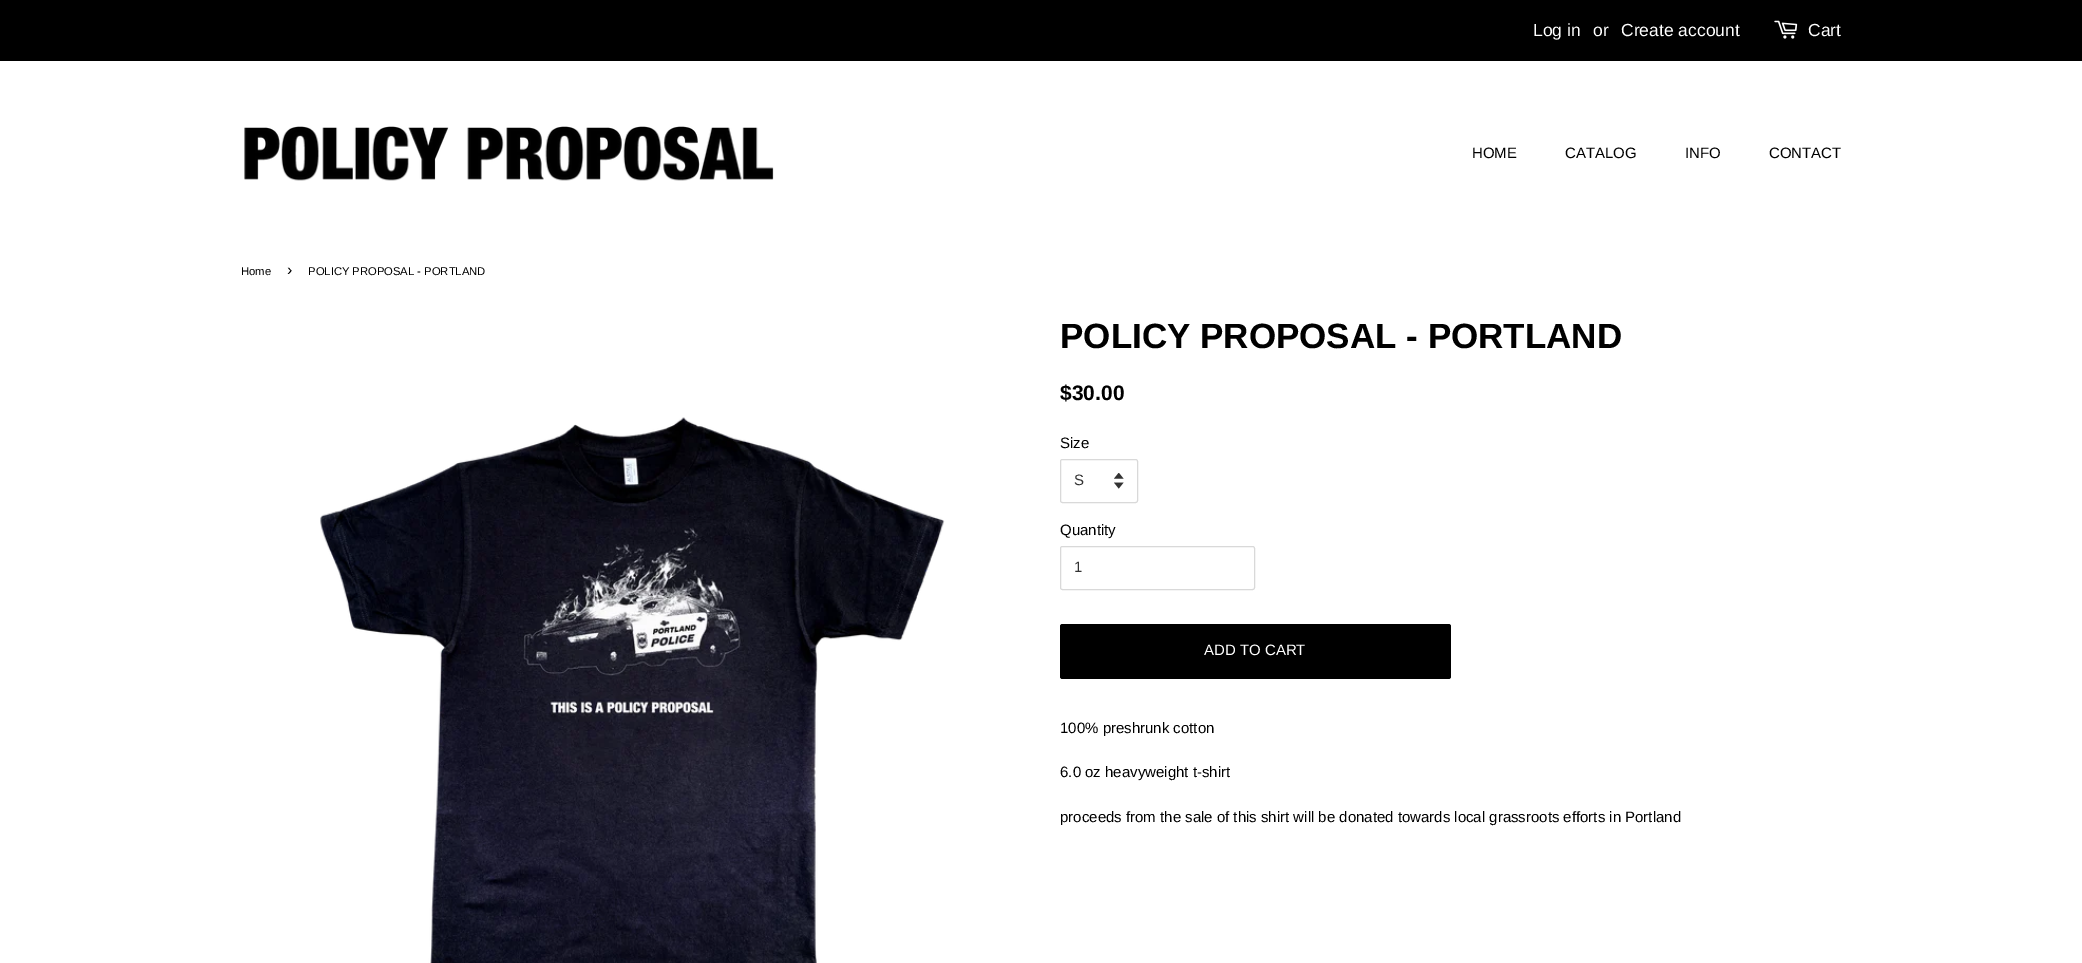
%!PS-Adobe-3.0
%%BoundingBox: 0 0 2082 963
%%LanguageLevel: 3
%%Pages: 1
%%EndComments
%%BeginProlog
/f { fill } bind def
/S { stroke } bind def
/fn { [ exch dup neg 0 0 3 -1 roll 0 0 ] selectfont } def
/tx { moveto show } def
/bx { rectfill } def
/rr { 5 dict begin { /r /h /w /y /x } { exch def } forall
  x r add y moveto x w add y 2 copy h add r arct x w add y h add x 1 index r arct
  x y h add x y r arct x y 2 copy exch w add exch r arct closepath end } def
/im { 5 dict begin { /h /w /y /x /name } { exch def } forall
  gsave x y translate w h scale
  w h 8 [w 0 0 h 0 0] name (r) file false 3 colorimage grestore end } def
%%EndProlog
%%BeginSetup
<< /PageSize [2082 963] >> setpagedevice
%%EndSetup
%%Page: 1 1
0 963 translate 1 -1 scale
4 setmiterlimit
1 setgray
0 0 2082 963 bx
0 setgray
0 0 2082 61 bx
/LiberationSans-Regular 17.5 fn
1 setgray
(Log in) 1533 36 tx
(or) 1593 36 tx
(Create account) 1621 36 tx
(image0.raw) 1774 20 24 19 im
(Cart) 1808 36 tx
(image1.raw) 244 126 530 55 im
/LiberationSans-Regular 15 fn
0 setgray
(HOME) 1472 158 tx
(CATALOG) 1565 158 tx
(INFO) 1685 158 tx
(CONTACT) 1769 158 tx
/LiberationSans-Regular 11.25 fn
(Home) 241 275 tx
/LiberationSans-Regular 16 fn
(›) 287 275 tx
/LiberationSans-Regular 11.25 fn
(POLICY PROPOSAL - PORTLAND) 308 275 tx
(image2.raw) 320 417 625 546 im
/LiberationSans-Bold 35 fn
(POLICY PROPOSAL - PORTLAND) 1060 348 tx
/LiberationSans-Bold 21 fn
($30.00) 1060 400 tx
/LiberationSans-Regular 15 fn
(Size) 1060 448 tx
(image3.raw) 1114 473 10 16 im
0.851 setgray
1060.5 459.5 77 43 2 rr S
0.2 setgray
(S) 1074 485 tx
0 setgray
(Quantity) 1060 535 tx
0.851 setgray
1060.5 546.5 194 43 2 rr S
0.2 setgray
(1) 1074 572 tx
0 setgray
1060 624 391 55 2.5 rr f
1 setgray
(ADD TO CART) 1204 655 tx
0 setgray
(100% preshrunk cotton) 1060 733 tx
(6.0 oz heavyweight t-shirt) 1060 777 tx
(proceeds from the sale of this shirt will be donated towards local grassroots efforts in Portland) 1060 822 tx
showpage
%%EOF
